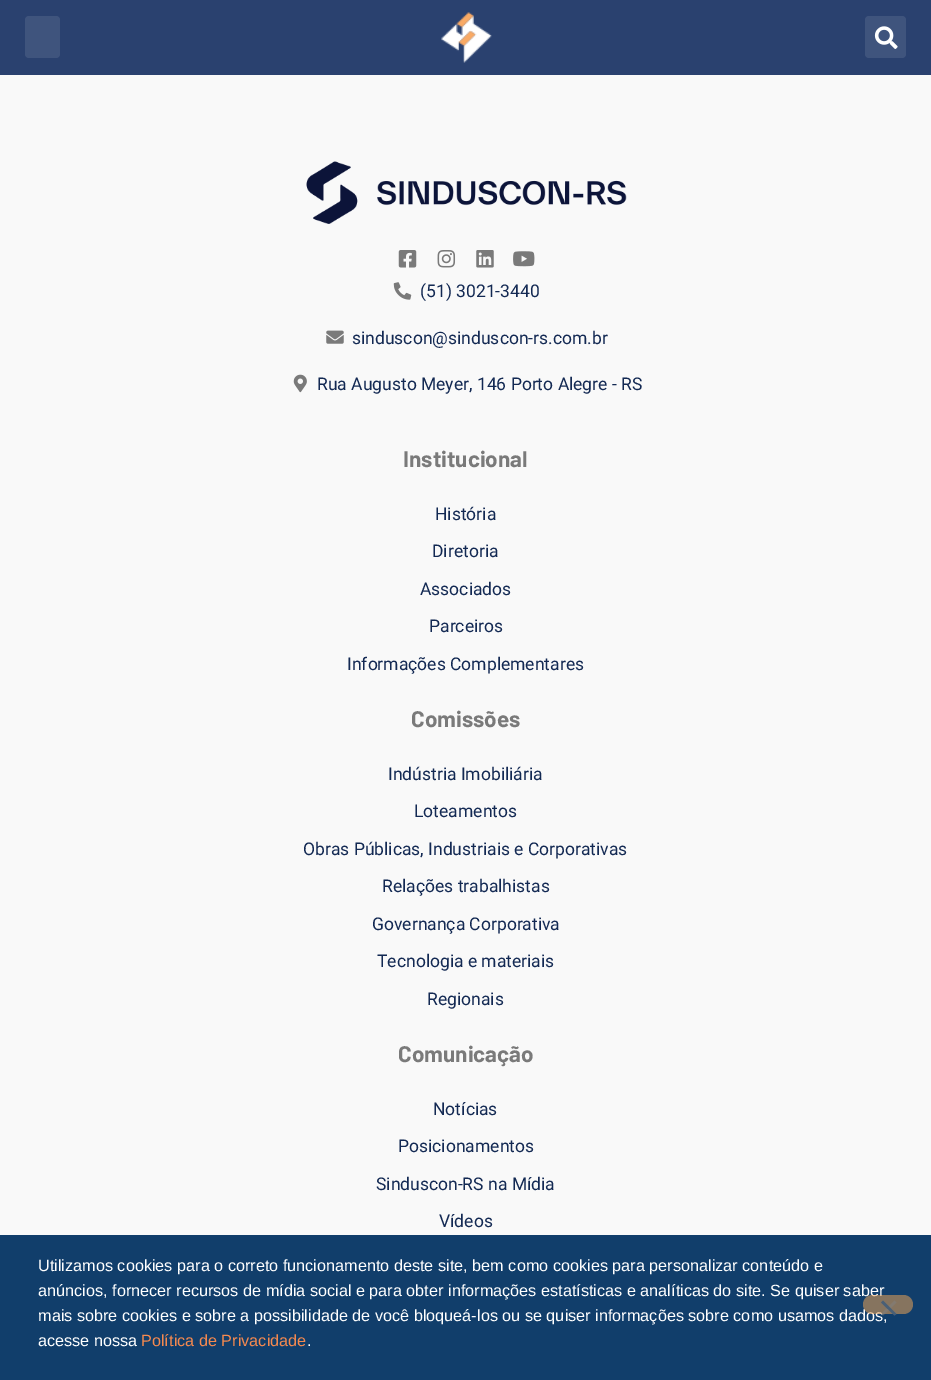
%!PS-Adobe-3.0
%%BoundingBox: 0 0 931 1380
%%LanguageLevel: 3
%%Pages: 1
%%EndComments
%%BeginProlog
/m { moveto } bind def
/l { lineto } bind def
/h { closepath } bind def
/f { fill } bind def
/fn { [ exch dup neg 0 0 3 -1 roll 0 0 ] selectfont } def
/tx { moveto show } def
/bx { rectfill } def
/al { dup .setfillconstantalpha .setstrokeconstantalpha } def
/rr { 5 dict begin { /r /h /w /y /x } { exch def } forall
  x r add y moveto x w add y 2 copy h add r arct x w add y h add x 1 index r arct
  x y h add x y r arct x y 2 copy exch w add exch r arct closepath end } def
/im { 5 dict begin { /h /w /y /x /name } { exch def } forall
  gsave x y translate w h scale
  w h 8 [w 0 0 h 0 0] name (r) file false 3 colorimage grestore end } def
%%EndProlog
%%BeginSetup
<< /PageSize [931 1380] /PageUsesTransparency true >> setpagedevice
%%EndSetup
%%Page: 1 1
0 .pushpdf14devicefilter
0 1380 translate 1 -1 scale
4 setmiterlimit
0.976 setgray
0 0 931 1380 bx
0.165 0.255 0.435 setrgbcolor
0 0 931 75 bx
0.247 0.329 0.49 setrgbcolor
25 16 35 42 4 rr f
(image0.raw) 441 12 51 51 im
865 16 41 42 4 rr f
(image1.raw) 874 26 24 23 im
(image2.raw) 306 161 321 63 im
(image3.raw) 398 250 19 18 im
(image4.raw) 437 250 19 18 im
(image5.raw) 476 250 18 18 im
(image6.raw) 513 251 22 16 im
(image7.raw) 393 282 19 18 im
/Roboto-Regular 17.5 fn
0.075 0.161 0.325 setrgbcolor
(\(51\) 3021-3440) 420 297 tx
(image8.raw) 326 330 18 14 im
(sinduscon@sinduscon-rs.com.br) 352 344 tx
(image9.raw) 293 374 14 19 im
(Rua Augusto Meyer, 146 Porto Alegre - RS) 317 390 tx
/Barlow-Bold 22.5 fn
0.478 setgray
(Institucional) 403 467 tx
/Roboto-Regular 17.5 fn
0.075 0.161 0.325 setrgbcolor
(História) 435 520 tx
(Diretoria) 432 557 tx
(Associados) 420 595 tx
(Parceiros) 429 632 tx
(Informações Complementares) 347 670 tx
/Barlow-Bold 22.5 fn
0.478 setgray
(Comissões) 411 727 tx
/Roboto-Regular 17.5 fn
0.075 0.161 0.325 setrgbcolor
(Indústria Imobiliária) 388 780 tx
(Loteamentos) 414 817 tx
(Obras Públicas, Industriais e Corporativas) 303 855 tx
(Relações trabalhistas) 382 892 tx
(Governança Corporativa) 372 930 tx
(Tecnologia e materiais) 377 967 tx
(Regionais) 427 1005 tx
/Barlow-Bold 22.5 fn
0.478 setgray
(Comunicação) 398 1062 tx
/Roboto-Regular 17.5 fn
0.075 0.161 0.325 setrgbcolor
(Notícias) 433 1115 tx
(Posicionamentos) 398 1152 tx
(Sinduscon-RS na Mídia) 376 1190 tx
(Vídeos) 439 1227 tx
0.067 0.243 0.42 setrgbcolor
0 1235 931 145 bx
/LiberationSans-Regular 16.25 fn
1 setgray
(Utilizamos cookies para o correto funcionamento deste site, bem como cookies para personalizar conteúdo e) 38 1271 tx
(anúncios, fornecer recursos de mídia social e para obter informações estatísticas e analíticas do site. Se quiser saber) 38 1296 tx
(mais sobre cookies e sobre a possibilidade de você bloqueá-los ou se quiser informações sobre como usamos dados,) 38 1321 tx
(acesse nossa) 38 1346 tx
0.961 0.537 0.31 setrgbcolor
(Política de Privacidade) 141 1346 tx
1 setgray
(.) 307 1346 tx
0.5 al
0.98 0.663 0.329 setrgbcolor
863 1295 50 19 9.5 rr f
0.502 setgray
894.5 1300.5 m 896.5 1302.5 l 883 1315.5 l 881 1314 l h f
1 al
0.286 0.373 0.463 setrgbcolor
881 1302.5 m 883 1300.5 l 896.5 1314 l 894.5 1315.5 l h f
.poppdf14devicefilter showpage
%%EOF
